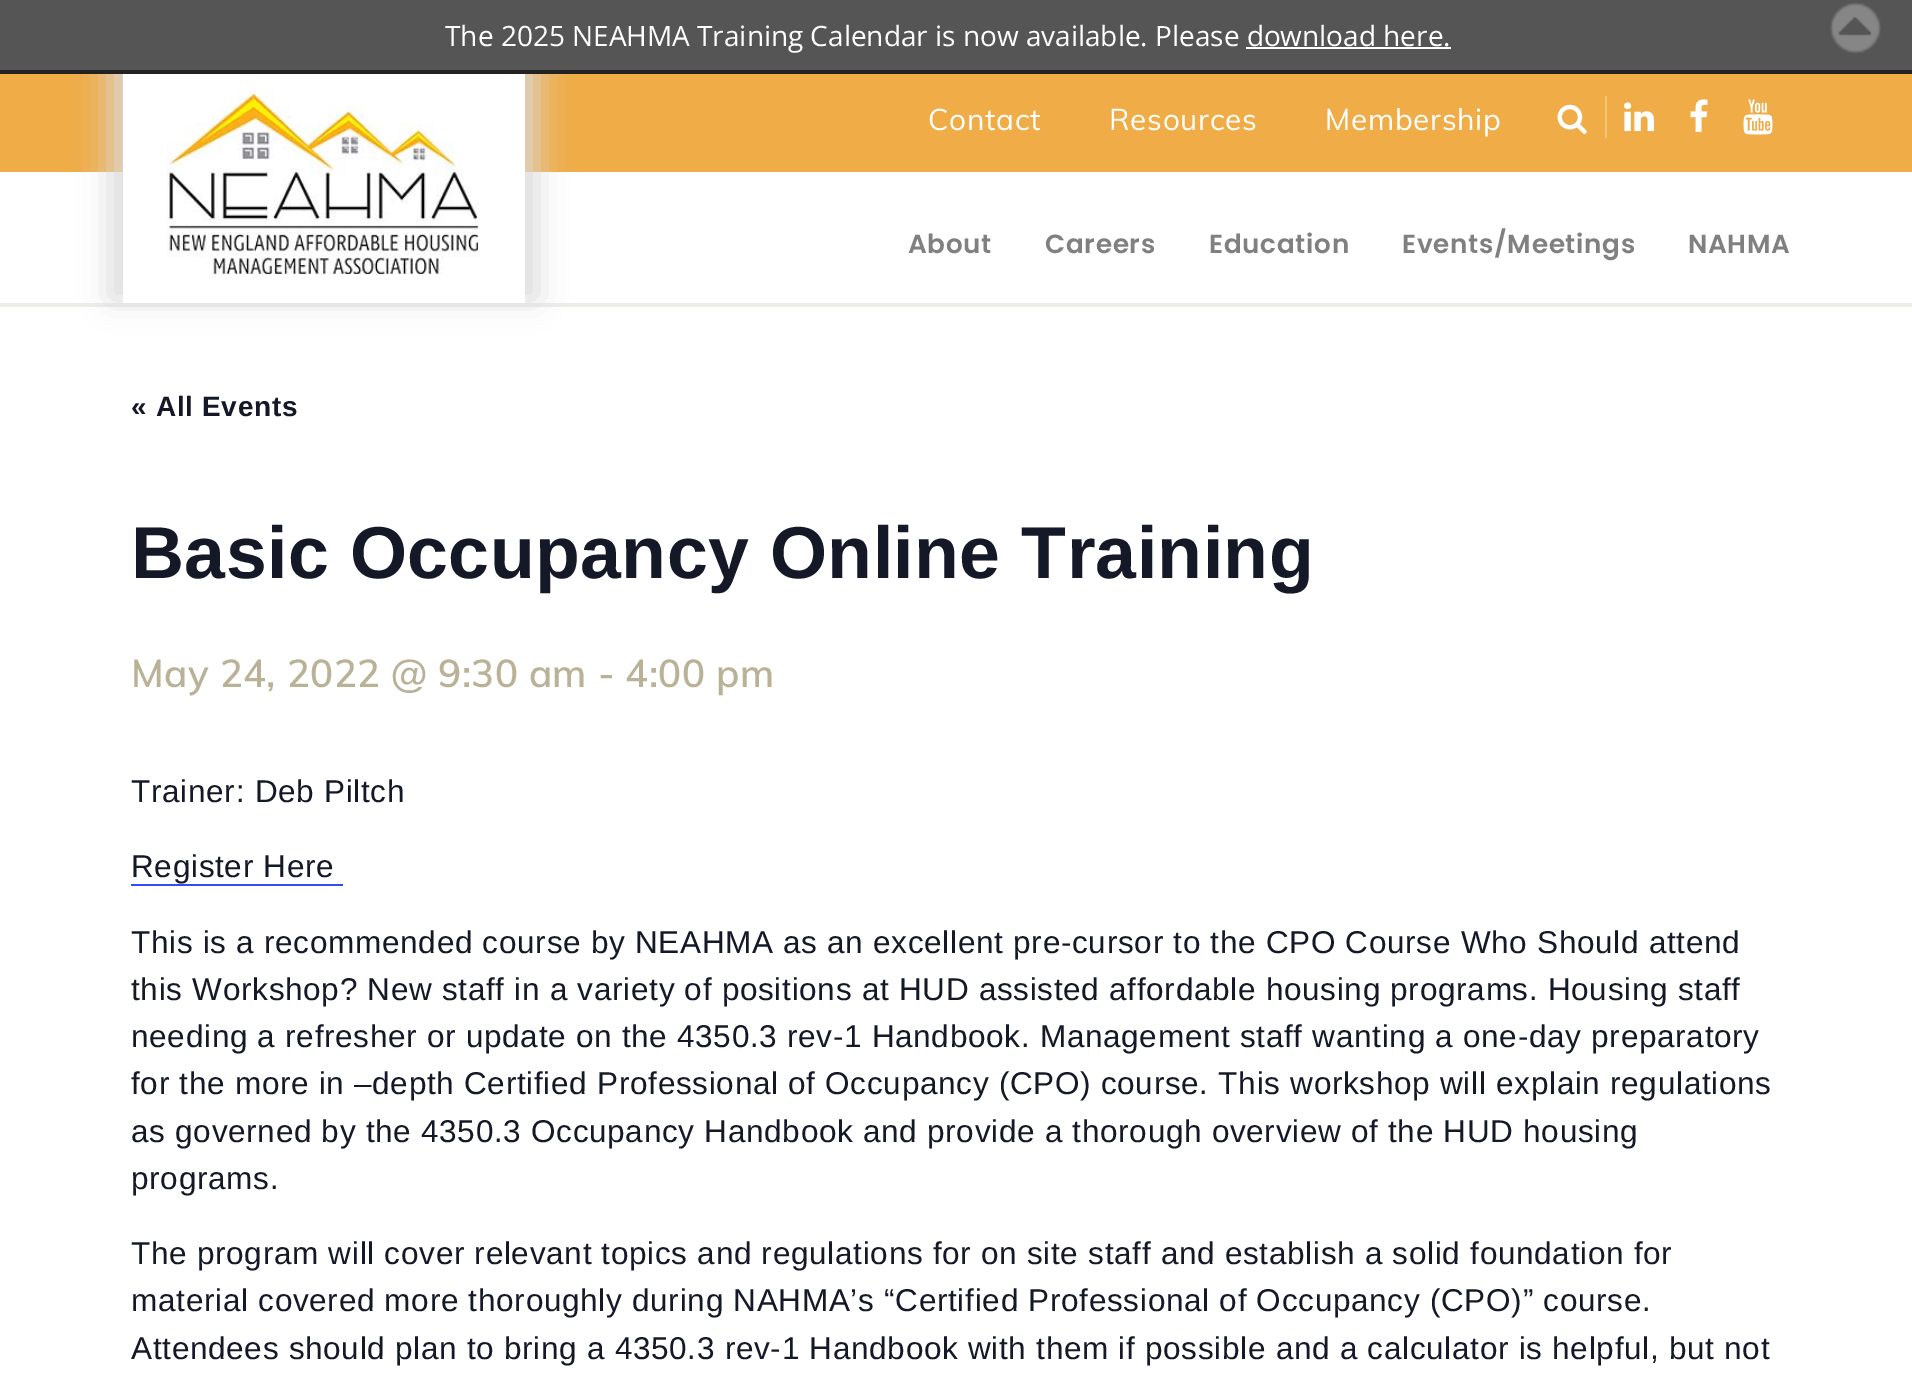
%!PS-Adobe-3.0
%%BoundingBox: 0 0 1912 1390
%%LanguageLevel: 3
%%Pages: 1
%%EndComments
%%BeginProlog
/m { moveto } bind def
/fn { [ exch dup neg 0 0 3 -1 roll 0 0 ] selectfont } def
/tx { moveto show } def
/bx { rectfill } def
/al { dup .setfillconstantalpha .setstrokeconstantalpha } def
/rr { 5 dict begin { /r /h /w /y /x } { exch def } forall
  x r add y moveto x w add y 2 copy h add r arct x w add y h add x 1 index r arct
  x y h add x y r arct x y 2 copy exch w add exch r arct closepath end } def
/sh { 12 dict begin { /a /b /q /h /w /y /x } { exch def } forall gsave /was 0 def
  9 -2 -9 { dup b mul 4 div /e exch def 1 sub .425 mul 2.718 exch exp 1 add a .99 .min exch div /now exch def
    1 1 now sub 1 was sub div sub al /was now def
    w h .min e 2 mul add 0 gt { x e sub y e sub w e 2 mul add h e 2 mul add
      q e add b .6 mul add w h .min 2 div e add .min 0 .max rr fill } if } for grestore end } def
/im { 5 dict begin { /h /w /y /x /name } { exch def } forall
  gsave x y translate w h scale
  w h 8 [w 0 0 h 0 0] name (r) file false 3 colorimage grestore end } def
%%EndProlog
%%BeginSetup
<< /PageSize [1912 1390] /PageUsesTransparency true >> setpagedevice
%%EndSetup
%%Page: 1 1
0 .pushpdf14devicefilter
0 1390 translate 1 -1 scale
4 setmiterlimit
1 setgray
0 0 1912 1390 bx
0.937 0.929 0.918 setrgbcolor
0 303 1912 4 bx
0.937 0.675 0.278 setrgbcolor
0 74 1912 98 bx
0.851 setgray
110 4 427 295 0 16 1 sh
0.333 setgray
0 0 1912 70 bx
0.133 setgray
0 70 1912 4 bx
/OpenSans-Regular 28 fn
1 setgray
(The 2025 NEAHMA Training Calendar is now available. Please download here.) 445 46 tx
1246 47 205 2 bx
(image0.raw) 1830 2 51 52 im
/Muli-Regular 29.75 fn
928 130 m 0.7 0 (Contact) ashow
1109 130 m 0.7 0 (Resources) ashow
1325 130 m 0.7 0 (Membership) ashow
0.976 0.773 0.463 setrgbcolor
1605 96 2 42 bx
(image1.raw) 1557 104 30 30 im
(image2.raw) 1624 102 30 30 im
(image3.raw) 1690 99 18 33 im
(image4.raw) 1743 99 30 36 im
1 setgray
123 74 402 229 bx
(image5.raw) 166 87 314 188 im
/Poppins-SemiBold 26.25 fn
0.502 setgray
908 253 m 0.7 0 (About) ashow
1045 253 m 0.7 0 (Careers) ashow
1209 253 m 0.7 0 (Education) ashow
1402 253 m 0.7 0 (Events/Meetings) ashow
1688 253 m 0.7 0 (NAHMA) ashow
/LiberationSans-Bold 28 fn
0.078 0.094 0.153 setrgbcolor
131 416 m 0.7 0 (« All Events) ashow
/LiberationSans-Bold 73.5 fn
131 578 m 0.35 0 (Basic Occupancy Online Training) ashow
/Muli-SemiBold 38.5 fn
0.729 0.698 0.588 setrgbcolor
131 687 m 0.35 0 (May 24, 2022 @ 9:30 am - 4:00 pm) ashow
/LiberationSans-Regular 31.5 fn
0.078 0.094 0.153 setrgbcolor
131 802 m 0.7 0 (Trainer: Deb Piltch) ashow
131 877 m 0.7 0 (Register Here) ashow
0.2 0.29 1 setrgbcolor
131 884 212 2 bx
0.078 0.094 0.153 setrgbcolor
131 953 m 0.7 0 (This is a recommended course by NEAHMA as an excellent pre-cursor to the CPO Course Who Should attend) ashow
131 1000 m 0.7 0 (this Workshop? New staff in a variety of positions at HUD assisted affordable housing programs. Housing staff) ashow
131 1047 m 0.7 0 (needing a refresher or update on the 4350.3 rev-1 Handbook. Management staff wanting a one-day preparatory) ashow
131 1094 m 0.7 0 (for the more in –depth Certified Professional of Occupancy \(CPO\) course. This workshop will explain regulations) ashow
131 1142 m 0.7 0 (as governed by the 4350.3 Occupancy Handbook and provide a thorough overview of the HUD housing) ashow
131 1189 m 0.7 0 (programs.) ashow
131 1264 m 0.7 0 (The program will cover relevant topics and regulations for on site staff and establish a solid foundation for) ashow
131 1311 m 0.7 0 (material covered more thoroughly during NAHMA’s “Certified Professional of Occupancy \(CPO\)” course.) ashow
131 1359 m 0.7 0 (Attendees should plan to bring a 4350.3 rev-1 Handbook with them if possible and a calculator is helpful, but not) ashow
.poppdf14devicefilter showpage
%%EOF
